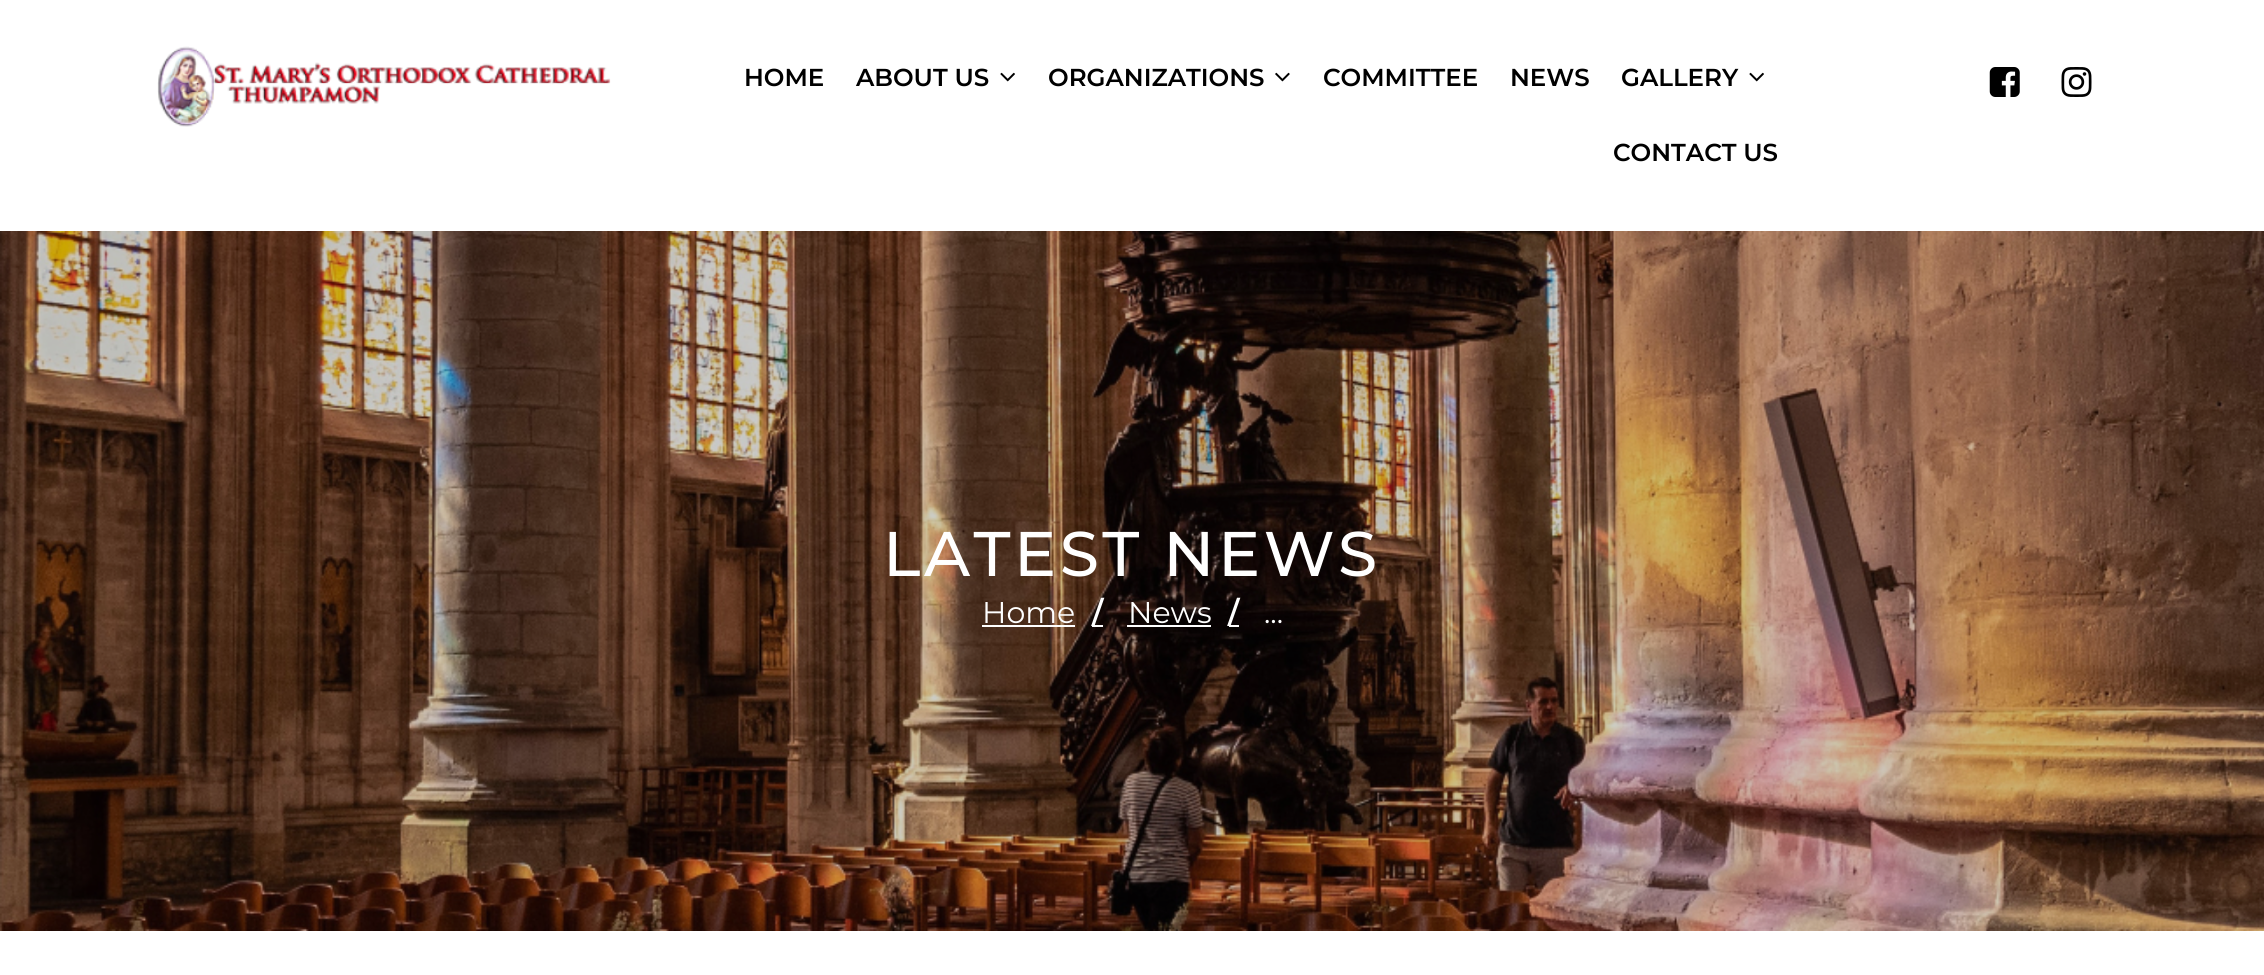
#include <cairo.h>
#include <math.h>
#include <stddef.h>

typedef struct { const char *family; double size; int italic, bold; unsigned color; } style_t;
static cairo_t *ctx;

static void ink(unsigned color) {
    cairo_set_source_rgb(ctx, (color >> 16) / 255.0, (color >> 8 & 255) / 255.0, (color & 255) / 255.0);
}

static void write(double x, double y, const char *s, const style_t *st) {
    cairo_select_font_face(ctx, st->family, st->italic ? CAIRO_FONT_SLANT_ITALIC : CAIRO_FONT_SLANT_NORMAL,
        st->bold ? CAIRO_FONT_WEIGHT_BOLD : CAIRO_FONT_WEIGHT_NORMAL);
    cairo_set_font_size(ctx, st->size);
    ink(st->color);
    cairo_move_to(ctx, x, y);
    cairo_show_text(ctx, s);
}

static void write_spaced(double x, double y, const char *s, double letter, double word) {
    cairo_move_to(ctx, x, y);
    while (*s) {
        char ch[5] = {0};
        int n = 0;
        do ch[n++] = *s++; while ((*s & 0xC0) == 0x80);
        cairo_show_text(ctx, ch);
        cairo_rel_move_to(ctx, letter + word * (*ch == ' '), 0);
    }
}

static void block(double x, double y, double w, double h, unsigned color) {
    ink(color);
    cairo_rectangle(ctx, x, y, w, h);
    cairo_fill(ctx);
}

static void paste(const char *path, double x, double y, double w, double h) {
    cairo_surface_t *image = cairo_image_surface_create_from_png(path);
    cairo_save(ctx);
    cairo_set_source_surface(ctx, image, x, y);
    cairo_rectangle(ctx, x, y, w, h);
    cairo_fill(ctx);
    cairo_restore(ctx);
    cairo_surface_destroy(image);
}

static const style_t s1 = {"Montserrat SemiBold", 24.5, 0, 0, 0x000000};
static const style_t s2 = {"Montserrat", 30, 0, 0, 0xffffff};
static const style_t s3 = {"Montserrat SemiBold", 30, 0, 0, 0xffffff};

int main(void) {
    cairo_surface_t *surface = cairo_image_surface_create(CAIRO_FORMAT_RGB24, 2264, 975);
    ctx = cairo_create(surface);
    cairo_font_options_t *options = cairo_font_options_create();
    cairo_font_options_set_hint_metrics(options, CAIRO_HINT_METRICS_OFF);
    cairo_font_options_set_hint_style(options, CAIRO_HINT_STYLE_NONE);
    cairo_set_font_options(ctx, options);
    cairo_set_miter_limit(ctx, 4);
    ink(0xffffff);
    cairo_paint(ctx);
    paste("pic1.png", 157, 46, 454, 81);
    write(744, 86, "HOME", &s1);
    write(856, 86, "ABOUT US", &s1);
    paste("pic2.png", 1000, 72, 15, 10);
    write(1048, 86, "ORGANIZATIONS", &s1);
    paste("pic3.png", 1275, 72, 15, 10);
    write(1323, 86, "COMMITTEE", &s1);
    write(1510, 86, "NEWS", &s1);
    write(1621, 86, "GALLERY", &s1);
    paste("pic2.png", 1749, 72, 15, 10);
    write(1613, 161, "CONTACT US", &s1);
    paste("pic4.png", 1989, 67, 31, 30);
    paste("pic5.png", 2061, 67, 31, 30);
    paste("pic6.png", 0, 231, 2264, 700);
    cairo_select_font_face(ctx, "Montserrat Medium", CAIRO_FONT_SLANT_NORMAL, CAIRO_FONT_WEIGHT_NORMAL);
    cairo_set_font_size(ctx, 63);
    ink(0xffffff);
    write_spaced(883, 576, "LATEST NEWS", 3.5, 0);
    write(982, 623, "Home", &s2);
    block(982, 625, 93, 2, 0xffffff);
    block(1092, 625, 11, 2, 0xffffff);
    write(1092, 623, "/", &s3);
    write(1128, 623, "News", &s2);
    block(1127, 625, 84, 2, 0xffffff);
    block(1229, 625, 10, 2, 0xffffff);
    write(1228, 623, "/", &s3);
    write(1264, 623, "...", &s2);
    cairo_surface_write_to_png(surface, "screenshot.png");
    cairo_font_options_destroy(options);
    cairo_destroy(ctx);
    cairo_surface_destroy(surface);
    return 0;
}
